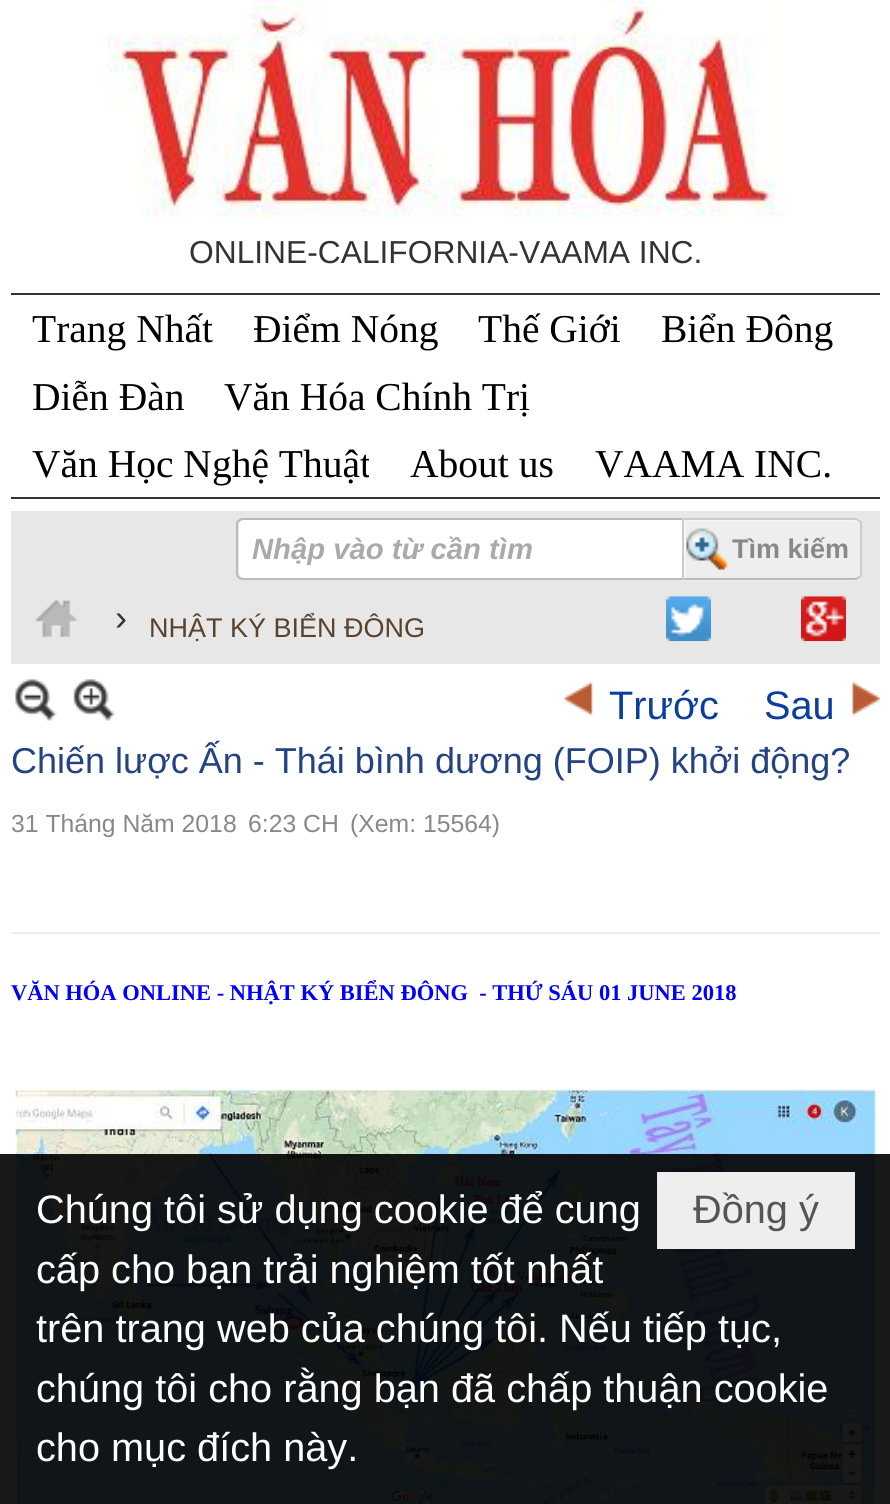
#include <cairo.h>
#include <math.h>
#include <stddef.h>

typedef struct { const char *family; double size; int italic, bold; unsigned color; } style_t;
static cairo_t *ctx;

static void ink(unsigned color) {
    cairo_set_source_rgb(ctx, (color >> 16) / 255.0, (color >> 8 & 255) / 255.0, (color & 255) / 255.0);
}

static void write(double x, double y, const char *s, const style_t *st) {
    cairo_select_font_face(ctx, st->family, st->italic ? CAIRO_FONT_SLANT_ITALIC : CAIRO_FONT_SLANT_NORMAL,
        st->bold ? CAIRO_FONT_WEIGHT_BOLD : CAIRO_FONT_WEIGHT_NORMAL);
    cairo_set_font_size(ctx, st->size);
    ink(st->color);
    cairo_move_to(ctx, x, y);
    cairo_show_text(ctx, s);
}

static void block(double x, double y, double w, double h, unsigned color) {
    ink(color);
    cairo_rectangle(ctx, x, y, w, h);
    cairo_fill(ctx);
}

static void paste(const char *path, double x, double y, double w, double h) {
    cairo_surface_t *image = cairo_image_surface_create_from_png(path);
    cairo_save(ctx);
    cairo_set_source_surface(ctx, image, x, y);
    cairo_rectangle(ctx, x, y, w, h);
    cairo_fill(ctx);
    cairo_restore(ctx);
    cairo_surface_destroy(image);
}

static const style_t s1 = {"Liberation Sans", 31.75, 0, 0, 0x333333};
static const style_t s2 = {"Liberation Serif", 39.5, 0, 0, 0x000000};
static const style_t s3 = {"Liberation Sans", 29.25, 1, 1, 0xaaaaaa};
static const style_t s4 = {"Liberation Sans", 27, 0, 1, 0x888888};
static const style_t s5 = {"Liberation Sans", 36, 0, 0, 0x333333};
static const style_t s6 = {"Liberation Sans", 27, 0, 0, 0x5a432e};
static const style_t s7 = {"Liberation Sans", 39.7, 0, 0, 0x0a3f9f};
static const style_t s8 = {"Liberation Sans", 36, 0, 0, 0x234383};
static const style_t s9 = {"Liberation Sans", 24.75, 0, 0, 0x888888};
static const style_t s10 = {"Liberation Serif", 22.5, 0, 1, 0x0000ff};
static const style_t s11 = {"Liberation Sans", 39.7, 0, 0, 0xffffff};
static const style_t s12 = {"Liberation Sans", 39.7, 0, 0, 0x555555};

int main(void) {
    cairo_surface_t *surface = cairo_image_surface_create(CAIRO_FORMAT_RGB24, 890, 1504);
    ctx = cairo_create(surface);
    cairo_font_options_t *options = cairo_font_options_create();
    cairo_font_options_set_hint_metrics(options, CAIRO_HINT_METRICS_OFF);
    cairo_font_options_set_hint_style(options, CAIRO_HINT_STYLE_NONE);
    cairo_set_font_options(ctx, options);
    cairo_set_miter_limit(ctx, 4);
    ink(0xffffff);
    cairo_paint(ctx);
    paste("pic1.png", 108, 0, 675, 218);
    write(189, 263, "ONLINE-CALIFORNIA-VAAMA INC.", &s1);
    block(11, 293, 869, 2, 0x333333);
    block(11, 497, 869, 2, 0x333333);
    write(32, 342, "Trang Nhất", &s2);
    write(253, 342, "Điểm Nóng", &s2);
    write(478, 342, "Thế Giới", &s2);
    write(661, 342, "Biển Đông", &s2);
    write(32, 410, "Diễn Đàn", &s2);
    write(224, 410, "Văn Hóa Chính Trị", &s2);
    cairo_save(ctx);
    cairo_rectangle(ctx, 32, 430, 337, 63);
    cairo_clip(ctx);
    write(32, 477, "Văn Học Nghệ Thuật", &s2);
    cairo_restore(ctx);
    write(410, 477, "About us", &s2);
    write(595, 477, "VAAMA INC.", &s2);
    block(11, 511, 869, 153, 0xe7e7e8);
    ink(0xffffff);
    cairo_new_path(ctx);
    cairo_move_to(ctx, 244, 520);
    cairo_line_to(ctx, 682, 520);
    cairo_line_to(ctx, 682, 578);
    cairo_line_to(ctx, 244, 578);
    cairo_curve_to(ctx, 241, 578, 239, 576, 239, 573);
    cairo_line_to(ctx, 239, 525);
    cairo_curve_to(ctx, 239, 522, 241, 520, 244, 520);
    cairo_close_path(ctx);
    cairo_fill(ctx);
    ink(0xbbbbbb);
    cairo_set_fill_rule(ctx, CAIRO_FILL_RULE_EVEN_ODD);
    cairo_new_path(ctx);
    cairo_move_to(ctx, 243, 518);
    cairo_line_to(ctx, 682, 518);
    cairo_line_to(ctx, 682, 580);
    cairo_line_to(ctx, 243, 580);
    cairo_curve_to(ctx, 239, 580, 236, 577, 236, 574);
    cairo_line_to(ctx, 236, 524);
    cairo_curve_to(ctx, 236, 521, 239, 518, 243, 518);
    cairo_close_path(ctx);
    cairo_move_to(ctx, 243, 520);
    cairo_line_to(ctx, 682, 520);
    cairo_line_to(ctx, 682, 578);
    cairo_line_to(ctx, 243, 578);
    cairo_curve_to(ctx, 241, 578, 238, 576, 238, 574);
    cairo_line_to(ctx, 238, 524);
    cairo_curve_to(ctx, 238, 522, 241, 520, 243, 520);
    cairo_close_path(ctx);
    cairo_fill(ctx);
    write(252, 559, "Nhập vào từ cần tìm", &s3);
    ink(0xeeeeee);
    cairo_new_path(ctx);
    cairo_move_to(ctx, 682, 518);
    cairo_line_to(ctx, 855, 518);
    cairo_curve_to(ctx, 859, 518, 862, 521, 862, 525);
    cairo_line_to(ctx, 862, 574);
    cairo_curve_to(ctx, 862, 578, 859, 581, 855, 581);
    cairo_line_to(ctx, 682, 581);
    cairo_close_path(ctx);
    cairo_fill(ctx);
    paste("pic2.png", 686, 528, 42, 42);
    ink(0xf5f5f5);
    cairo_set_fill_rule(ctx, CAIRO_FILL_RULE_WINDING);
    cairo_new_path(ctx);
    cairo_move_to(ctx, 686, 522);
    cairo_line_to(ctx, 857, 522);
    cairo_line_to(ctx, 859, 522);
    cairo_curve_to(ctx, 858, 521, 857, 520, 855, 520);
    cairo_line_to(ctx, 684, 520);
    cairo_line_to(ctx, 684, 578);
    cairo_line_to(ctx, 686, 578);
    cairo_close_path(ctx);
    cairo_fill(ctx);
    ink(0xcccccc);
    cairo_new_path(ctx);
    cairo_move_to(ctx, 860, 520);
    cairo_line_to(ctx, 856, 518);
    cairo_line_to(ctx, 682, 518);
    cairo_line_to(ctx, 684, 520);
    cairo_line_to(ctx, 855, 520);
    cairo_line_to(ctx, 858, 521);
    cairo_close_path(ctx);
    cairo_fill(ctx);
    cairo_new_path(ctx);
    cairo_move_to(ctx, 860, 520);
    cairo_line_to(ctx, 862, 522);
    cairo_line_to(ctx, 862, 576);
    cairo_line_to(ctx, 860, 578);
    cairo_line_to(ctx, 858, 577);
    cairo_curve_to(ctx, 859, 576, 860, 575, 860, 574);
    cairo_line_to(ctx, 860, 524);
    cairo_curve_to(ctx, 860, 523, 859, 522, 858, 521);
    cairo_close_path(ctx);
    cairo_fill(ctx);
    ink(0xbbbbbb);
    cairo_new_path(ctx);
    cairo_move_to(ctx, 860, 578);
    cairo_line_to(ctx, 856, 580);
    cairo_line_to(ctx, 682, 580);
    cairo_line_to(ctx, 684, 578);
    cairo_line_to(ctx, 855, 578);
    cairo_line_to(ctx, 858, 577);
    cairo_close_path(ctx);
    cairo_fill(ctx);
    ink(0xcccccc);
    cairo_new_path(ctx);
    cairo_move_to(ctx, 682, 518);
    cairo_line_to(ctx, 682, 580);
    cairo_line_to(ctx, 684, 578);
    cairo_line_to(ctx, 684, 520);
    cairo_close_path(ctx);
    cairo_fill(ctx);
    write(732, 558, "Tìm kiếm", &s4);
    paste("pic3.png", 35, 600, 43, 38);
    write(115, 630, "›", &s5);
    write(149, 637, "NHẬT KÝ BIỂN ĐÔNG", &s6);
    paste("pic4.png", 666, 596, 45, 46);
    paste("pic5.png", 801, 596, 45, 46);
    block(11, 932, 869, 2, 0xeeeeee);
    paste("pic6.png", 15, 679, 42, 42);
    paste("pic7.png", 73, 679, 43, 42);
    paste("pic8.png", 564, 681, 29, 35);
    write(609, 719, "Trước", &s7);
    paste("pic9.png", 852, 681, 28, 35);
    write(764, 719, "Sau", &s7);
    write(11, 773, "Chiến lược Ấn - Thái bình dương (FOIP) khởi động?", &s8);
    write(11, 832, "31 Tháng Năm 2018", &s9);
    write(248, 832, "6:23 CH", &s9);
    write(350, 832, "(Xem: 15564)", &s9);
    write(11, 1000, "VĂN HÓA ONLINE - NHẬT KÝ BIỂN ĐÔNG  - THỨ SÁU 01 JUNE 2018", &s10);
    paste("pic10.png", 15, 1089, 861, 415);
    cairo_set_source_rgba(ctx, 0, 0, 0, 0.9);
    cairo_rectangle(ctx, 0, 1154, 890, 350);
    cairo_fill(ctx);
    write(36, 1223, "Chúng tôi sử dụng cookie để cung", &s11);
    write(36, 1283, "cấp cho bạn trải nghiệm tốt nhất", &s11);
    write(36, 1342, "trên trang web của chúng tôi. Nếu tiếp tục,", &s11);
    write(36, 1402, "chúng tôi cho rằng bạn đã chấp thuận cookie", &s11);
    write(36, 1461, "cho mục đích này.", &s11);
    block(657, 1172, 198, 77, 0xeeeeee);
    write(693, 1223, "Đồng ý", &s12);
    cairo_surface_write_to_png(surface, "screenshot.png");
    cairo_font_options_destroy(options);
    cairo_destroy(ctx);
    cairo_surface_destroy(surface);
    return 0;
}
